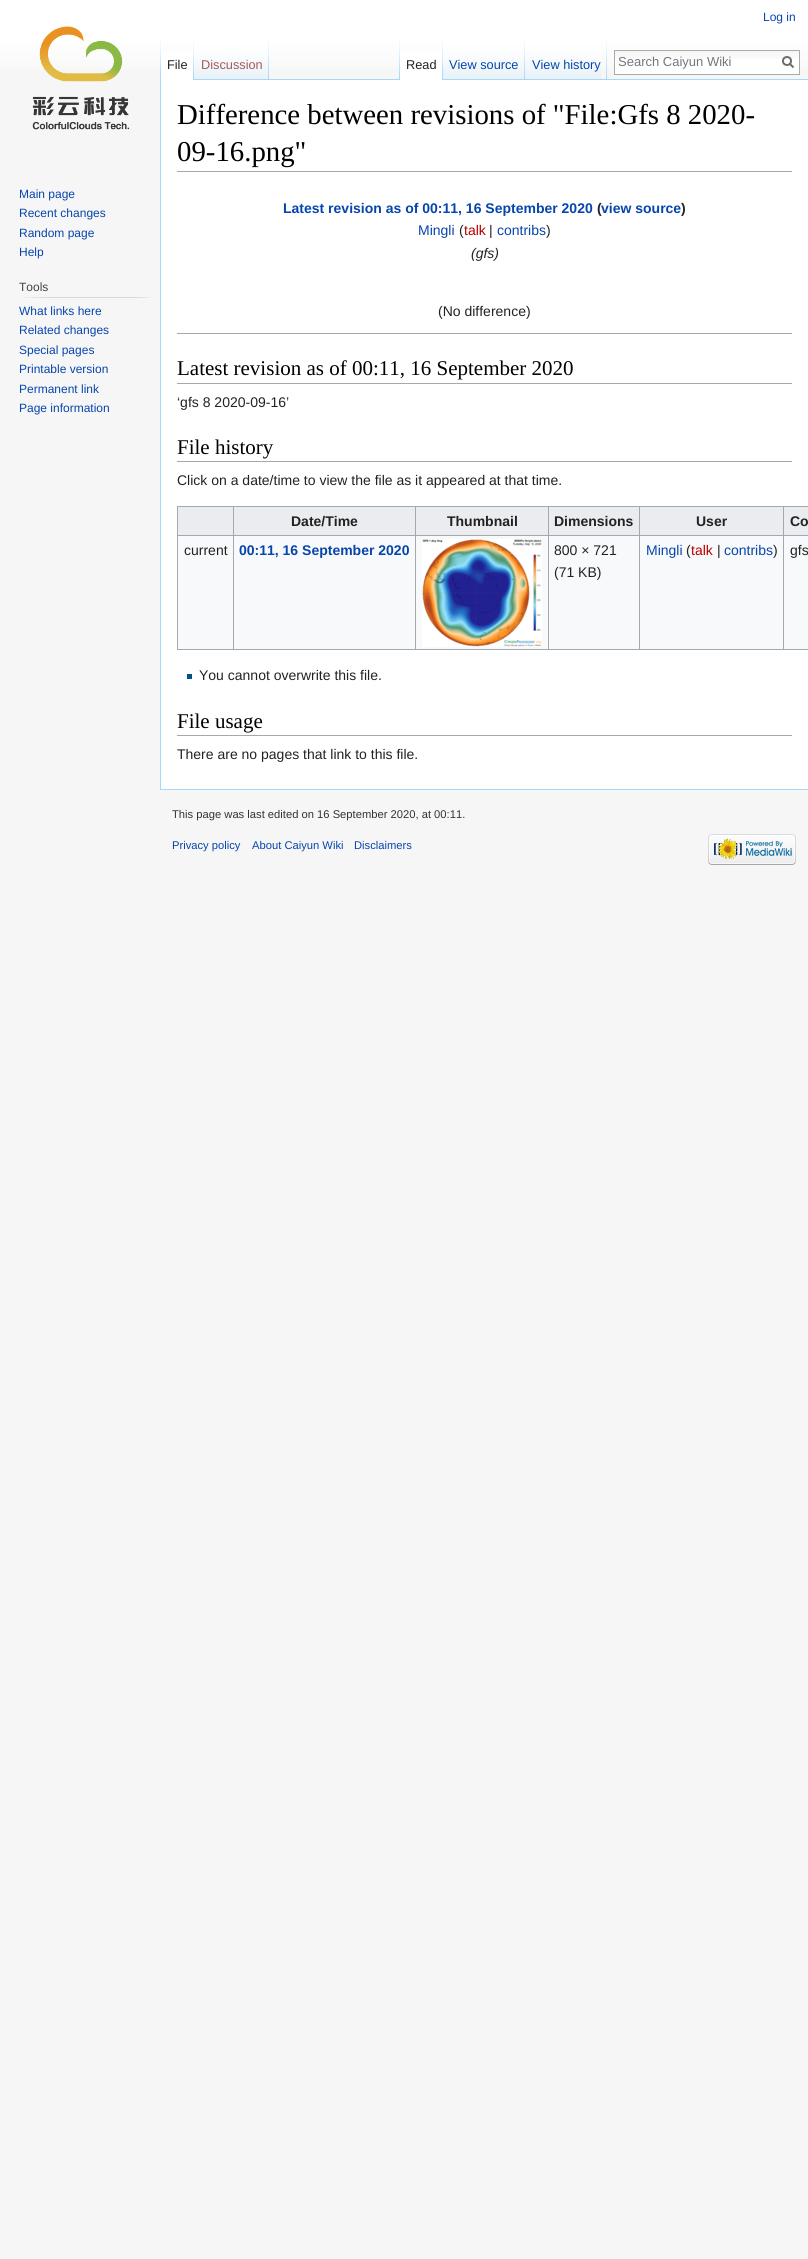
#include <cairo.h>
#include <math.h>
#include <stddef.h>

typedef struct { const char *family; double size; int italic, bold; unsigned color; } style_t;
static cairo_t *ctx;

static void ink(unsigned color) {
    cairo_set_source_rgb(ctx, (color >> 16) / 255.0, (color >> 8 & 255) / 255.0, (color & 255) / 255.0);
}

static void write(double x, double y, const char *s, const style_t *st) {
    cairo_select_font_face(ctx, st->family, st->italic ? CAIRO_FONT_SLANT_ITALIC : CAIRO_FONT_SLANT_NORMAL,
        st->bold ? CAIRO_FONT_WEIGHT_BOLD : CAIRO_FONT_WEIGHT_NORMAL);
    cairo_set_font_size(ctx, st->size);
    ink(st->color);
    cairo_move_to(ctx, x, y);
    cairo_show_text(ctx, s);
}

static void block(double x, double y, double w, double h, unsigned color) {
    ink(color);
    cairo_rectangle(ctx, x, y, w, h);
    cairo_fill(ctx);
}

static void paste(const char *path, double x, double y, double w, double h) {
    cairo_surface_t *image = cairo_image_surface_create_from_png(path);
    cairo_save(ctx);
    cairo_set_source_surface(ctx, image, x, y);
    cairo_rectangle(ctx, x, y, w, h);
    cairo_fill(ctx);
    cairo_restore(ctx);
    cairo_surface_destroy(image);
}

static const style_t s1 = {"Liberation Sans", 12, 0, 0, 0x0645ad};
static const style_t s2 = {"Liberation Sans", 12.75, 0, 0, 0x222222};
static const style_t s3 = {"Liberation Sans", 12.75, 0, 0, 0xa55858};
static const style_t s4 = {"Liberation Sans", 12.75, 0, 0, 0x0645ad};
static const style_t s5 = {"Liberation Sans", 13, 0, 0, 0x72777d};
static const style_t s6 = {"Liberation Sans", 12, 0, 0, 0x444444};
static const style_t s7 = {"Liberation Serif", 28.8, 0, 0, 0x000000};
static const style_t s8 = {"Liberation Sans", 14, 0, 1, 0x0645ad};
static const style_t s9 = {"Liberation Sans", 14, 0, 1, 0x222222};
static const style_t s10 = {"Liberation Sans", 14, 0, 0, 0x0645ad};
static const style_t s11 = {"Liberation Sans", 14, 0, 0, 0x222222};
static const style_t s12 = {"Liberation Sans", 14, 0, 0, 0xba0000};
static const style_t s13 = {"Liberation Sans", 14, 1, 0, 0x222222};
static const style_t s14 = {"Liberation Serif", 21, 0, 0, 0x000000};
static const style_t s15 = {"Liberation Sans", 11.2, 0, 0, 0x333333};
static const style_t s16 = {"Liberation Sans", 11.2, 0, 0, 0x0645ad};

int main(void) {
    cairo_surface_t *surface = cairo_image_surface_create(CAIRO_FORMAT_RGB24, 808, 2259);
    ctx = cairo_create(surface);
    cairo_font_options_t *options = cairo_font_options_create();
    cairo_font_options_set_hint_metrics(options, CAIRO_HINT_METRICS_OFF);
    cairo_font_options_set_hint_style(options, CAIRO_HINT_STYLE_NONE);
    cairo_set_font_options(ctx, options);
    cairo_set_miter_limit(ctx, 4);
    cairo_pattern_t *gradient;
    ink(0xf6f6f6);
    cairo_paint(ctx);
    gradient = cairo_pattern_create_linear(404, 0, 404, 80);
    cairo_pattern_add_color_stop_rgba(gradient, 0.5, 1, 1, 1, 1);
    cairo_pattern_add_color_stop_rgba(gradient, 1, 0.965, 0.965, 0.965, 1);
    cairo_set_source(ctx, gradient);
    cairo_pattern_destroy(gradient);
    cairo_rectangle(ctx, 0, 0, 808, 69);
    cairo_fill(ctx);
    write(763, 21, "Log in", &s1);
    paste("pic1.png", 160, 40, 1, 39);
    block(161, 51, 32, 29, 0xffffff);
    paste("pic2.png", 193, 40, 1, 40);
    write(167, 69, "File", &s2);
    paste("pic3.png", 194, 40, 75, 40);
    paste("pic1.png", 268, 40, 1, 39);
    write(201, 69, "Discussion", &s3);
    paste("pic1.png", 399, 40, 1, 39);
    block(269, 79, 539, 1, 0xa7d7f9);
    block(400, 51, 42, 29, 0xffffff);
    paste("pic2.png", 442, 40, 1, 40);
    write(406, 69, "Read", &s2);
    paste("pic4.png", 443, 40, 82, 40);
    paste("pic1.png", 524, 40, 1, 39);
    write(449, 69, "View source", &s4);
    paste("pic5.png", 525, 40, 76, 40);
    write(532, 69, "View history", &s4);
    paste("pic1.png", 606, 40, 1, 39);
    block(615, 59, 184, 15, 0xffffff);
    paste("pic6.png", 615, 51, 184, 8);
    cairo_rectangle(ctx, 614.5, 50.5, 185, 24);
    ink(0xaaaaaa);
    cairo_set_line_width(ctx, 1);
    cairo_stroke(ctx);
    write(618, 66, "Search Caiyun Wiki", &s5);
    cairo_new_path(ctx);
    cairo_move_to(ctx, 793.5, 67.5);
    cairo_line_to(ctx, 789.5, 63.5);
    ink(0x6c6c6c);
    cairo_set_line_width(ctx, 2);
    cairo_stroke(ctx);
    cairo_arc(ctx, 787, 61, 4, 0, 2 * M_PI);
    cairo_stroke(ctx);
    paste("pic7.png", 32, 26, 98, 104);
    write(19, 198, "Main page", &s1);
    write(19, 217, "Recent changes", &s1);
    write(19, 237, "Random page", &s1);
    write(19, 256, "Help", &s1);
    write(19, 291, "Tools", &s6);
    paste("pic8.png", 22, 297, 128, 1);
    write(19, 315, "What links here", &s1);
    write(19, 334, "Related changes", &s1);
    write(19, 354, "Special pages", &s1);
    write(19, 373, "Printable version", &s1);
    write(19, 393, "Permanent link", &s1);
    write(19, 412, "Page information", &s1);
    block(161, 80, 647, 709, 0xffffff);
    block(160, 789, 648, 1, 0xa7d7f9);
    block(160, 79, 1, 711, 0xa7d7f9);
    block(177, 171, 615, 1, 0xa2a9b1);
    write(177, 124, "Difference between revisions of \"File:Gfs 8 2020-", &s7);
    write(177, 161, "09-16.png\"", &s7);
    write(283, 213, "Latest revision as of 00:11, 16 September 2020", &s8);
    write(597, 213, "(", &s9);
    write(601, 213, "view source", &s8);
    write(681, 213, ")", &s9);
    write(418, 235, "Mingli", &s10);
    write(459, 235, "(", &s11);
    write(464, 235, "talk", &s12);
    write(489, 235, "|", &s11);
    write(497, 235, "contribs", &s10);
    write(546, 235, ")", &s11);
    write(471, 258, "(gfs)", &s13);
    write(438, 316, "(No difference)", &s11);
    block(177, 333, 615, 1, 0xa2a9b1);
    block(177, 383, 615, 1, 0xa2a9b1);
    write(177, 375, "Latest revision as of 00:11, 16 September 2020", &s14);
    write(177, 407, "‘gfs 8 2020-09-16’", &s11);
    block(177, 461, 615, 1, 0xa2a9b1);
    write(177, 454, "File history", &s14);
    write(177, 485, "Click on a date/time to view the file as it appeared at that time.", &s11);
    block(178, 536, 630, 113, 0xf8f9fa);
    block(177, 506, 631, 1, 0xa2a9b1);
    block(177, 649, 631, 1, 0xa2a9b1);
    block(177, 506, 1, 144, 0xa2a9b1);
    block(178, 507, 55, 28, 0xeaecf0);
    block(234, 507, 181, 28, 0xeaecf0);
    block(783, 535, 25, 1, 0xa2a9b1);
    block(783, 535, 1, 115, 0xa2a9b1);
    block(639, 535, 145, 1, 0xa2a9b1);
    block(639, 535, 1, 115, 0xa2a9b1);
    block(548, 535, 92, 1, 0xa2a9b1);
    block(548, 535, 1, 115, 0xa2a9b1);
    block(415, 535, 134, 1, 0xa2a9b1);
    block(415, 535, 1, 115, 0xa2a9b1);
    block(233, 535, 183, 1, 0xa2a9b1);
    block(233, 535, 1, 115, 0xa2a9b1);
    block(177, 535, 57, 1, 0xa2a9b1);
    block(233, 506, 1, 30, 0xa2a9b1);
    write(291, 526, "Date/Time", &s9);
    block(416, 507, 132, 28, 0xeaecf0);
    block(415, 506, 1, 30, 0xa2a9b1);
    write(447, 526, "Thumbnail", &s9);
    block(549, 507, 90, 28, 0xeaecf0);
    block(548, 506, 1, 30, 0xa2a9b1);
    write(554, 526, "Dimensions", &s9);
    block(640, 507, 143, 28, 0xeaecf0);
    block(639, 506, 1, 30, 0xa2a9b1);
    write(696, 526, "User", &s9);
    block(784, 507, 24, 28, 0xeaecf0);
    block(783, 506, 1, 30, 0xa2a9b1);
    write(790, 526, "Co", &s9);
    write(184, 555, "current", &s11);
    write(239, 555, "00:11, 16 September 2020", &s8);
    paste("pic9.png", 422, 539, 120, 108);
    write(554, 555, "800 × 721", &s11);
    write(554, 577, "(71 KB)", &s11);
    write(646, 555, "Mingli", &s10);
    write(686, 555, "(", &s11);
    write(691, 555, "talk", &s12);
    write(717, 555, "|", &s11);
    write(724, 555, "contribs", &s10);
    write(773, 555, ")", &s11);
    write(790, 555, "gfs", &s11);
    block(187, 674, 5, 5, 0x00528c);
    write(199, 680, "You cannot overwrite this file.", &s11);
    block(177, 735, 615, 1, 0xa2a9b1);
    write(177, 728, "File usage", &s14);
    write(177, 759, "There are no pages that link to this file.", &s11);
    write(172, 818, "This page was last edited on 16 September 2020, at 00:11.", &s15);
    write(172, 849, "Privacy policy", &s16);
    write(252, 849, "About Caiyun Wiki", &s16);
    write(354, 849, "Disclaimers", &s16);
    paste("pic10.png", 708, 834, 88, 31);
    cairo_surface_write_to_png(surface, "screenshot.png");
    cairo_font_options_destroy(options);
    cairo_destroy(ctx);
    cairo_surface_destroy(surface);
    return 0;
}
